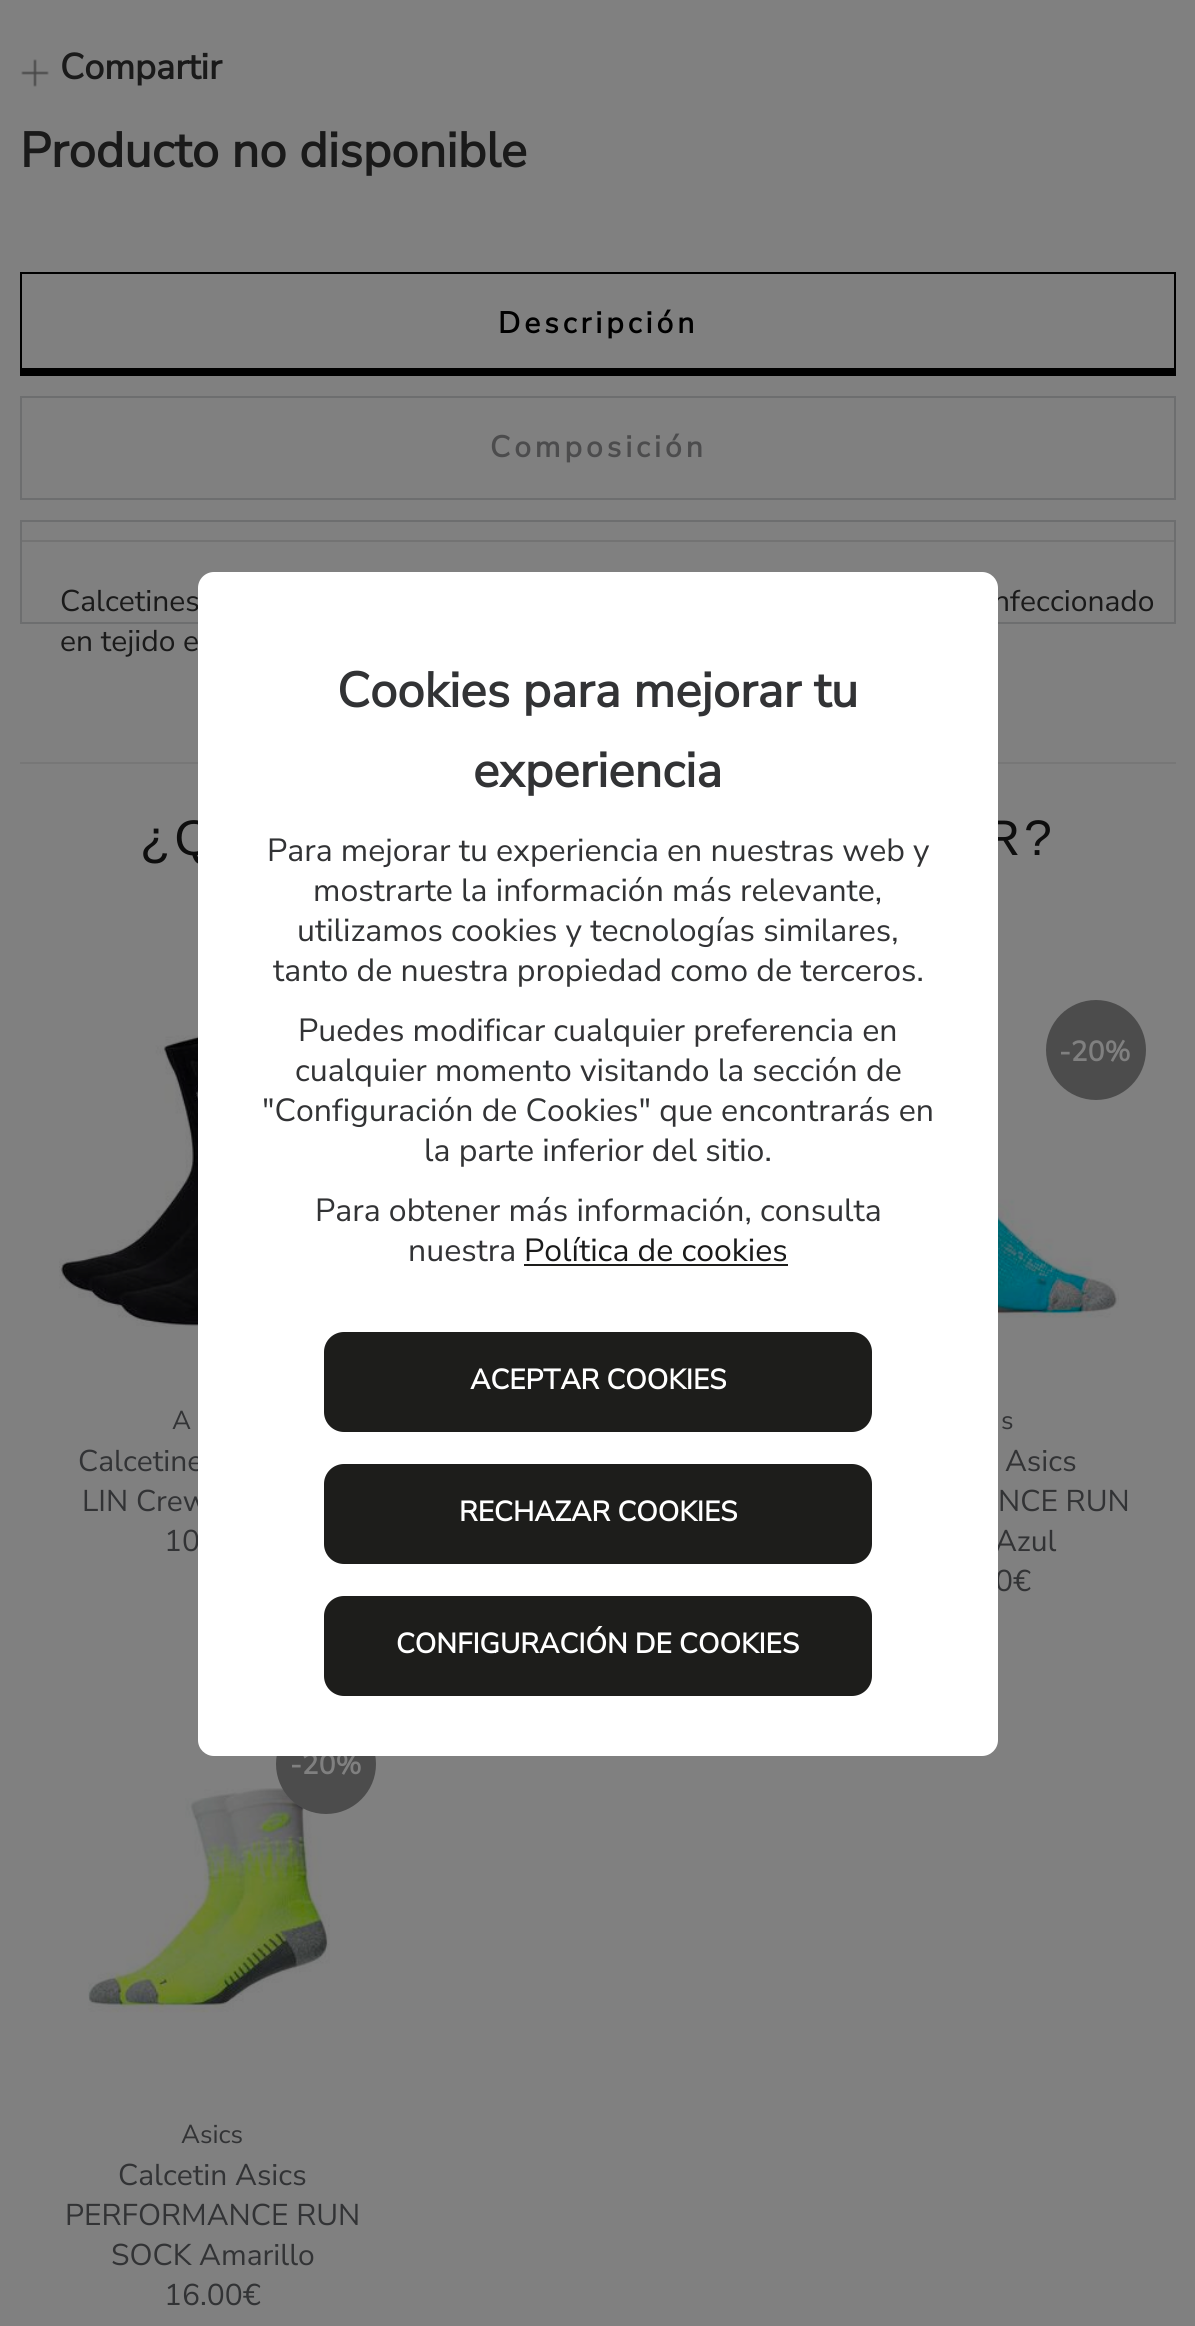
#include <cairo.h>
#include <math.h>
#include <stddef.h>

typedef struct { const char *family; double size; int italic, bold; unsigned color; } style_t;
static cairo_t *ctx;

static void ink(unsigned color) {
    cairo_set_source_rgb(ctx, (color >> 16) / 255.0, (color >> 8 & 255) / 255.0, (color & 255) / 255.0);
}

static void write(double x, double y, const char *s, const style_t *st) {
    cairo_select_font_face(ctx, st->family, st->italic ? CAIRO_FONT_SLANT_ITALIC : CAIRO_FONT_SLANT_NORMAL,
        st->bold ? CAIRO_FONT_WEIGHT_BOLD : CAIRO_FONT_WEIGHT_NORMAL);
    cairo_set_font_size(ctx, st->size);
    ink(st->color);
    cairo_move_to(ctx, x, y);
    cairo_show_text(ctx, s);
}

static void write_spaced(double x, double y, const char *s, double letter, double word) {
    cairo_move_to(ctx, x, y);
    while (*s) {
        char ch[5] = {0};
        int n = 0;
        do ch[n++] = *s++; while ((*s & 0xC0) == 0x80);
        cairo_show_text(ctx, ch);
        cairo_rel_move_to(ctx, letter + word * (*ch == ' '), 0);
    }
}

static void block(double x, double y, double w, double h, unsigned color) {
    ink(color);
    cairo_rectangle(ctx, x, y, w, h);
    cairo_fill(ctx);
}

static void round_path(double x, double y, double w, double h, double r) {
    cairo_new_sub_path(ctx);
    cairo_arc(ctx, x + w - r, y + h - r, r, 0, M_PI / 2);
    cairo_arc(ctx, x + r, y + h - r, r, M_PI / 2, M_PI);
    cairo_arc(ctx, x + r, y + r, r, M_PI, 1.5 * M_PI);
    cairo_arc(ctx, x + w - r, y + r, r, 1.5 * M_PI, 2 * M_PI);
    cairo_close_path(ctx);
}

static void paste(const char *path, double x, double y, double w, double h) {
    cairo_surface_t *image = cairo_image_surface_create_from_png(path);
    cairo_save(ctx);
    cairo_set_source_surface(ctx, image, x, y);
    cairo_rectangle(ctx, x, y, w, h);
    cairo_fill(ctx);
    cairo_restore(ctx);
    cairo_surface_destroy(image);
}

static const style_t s1 = {"Nunito Sans", 36, 0, 1, 0x1a1a1a};
static const style_t s2 = {"Nunito Sans", 49, 0, 1, 0x1a1a1a};
static const style_t s3 = {"Nunito Sans ExtraLight", 30, 0, 0, 0x1a1a1a};
static const style_t s4 = {"Nunito Sans ExtraLight", 26, 0, 0, 0x323335};
static const style_t s5 = {"Nunito Sans ExtraLight", 30, 0, 0, 0x323335};
static const style_t s6 = {"Nunito Sans", 28, 0, 1, 0x808080};
static const style_t s7 = {"Nunito Sans", 49, 0, 1, 0x323335};
static const style_t s8 = {"Nunito Sans ExtraLight", 32, 0, 0, 0x323335};
static const style_t s9 = {"Nunito Sans ExtraLight", 32, 0, 0, 0x1a1a1a};
static const style_t s10 = {"Nunito Sans", 28, 0, 1, 0xffffff};

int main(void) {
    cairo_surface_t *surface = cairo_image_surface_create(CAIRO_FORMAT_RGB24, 1195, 2326);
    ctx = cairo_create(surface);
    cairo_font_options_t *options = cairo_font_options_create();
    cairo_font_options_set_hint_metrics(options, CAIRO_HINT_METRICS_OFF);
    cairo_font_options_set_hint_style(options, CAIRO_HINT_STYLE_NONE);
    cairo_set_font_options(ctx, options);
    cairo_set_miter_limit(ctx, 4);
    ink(0x808080);
    cairo_paint(ctx);
    paste("pic1.png", 21, 59, 28, 28);
    write(60, 79, "Compartir", &s1);
    write(20, 167, "Producto no disponible", &s2);
    block(20, 540, 1156, 2, 0x737373);
    block(22, 368, 1152, 6, 0x000000);
    cairo_rectangle(ctx, 21, 273, 1154, 102);
    cairo_stroke(ctx);
    cairo_set_font_size(ctx, 30);
    write_spaced(498, 333, "Descripción", 4, 0);
    cairo_rectangle(ctx, 21, 397, 1154, 102);
    ink(0x6d6e6f);
    cairo_stroke(ctx);
    ink(0x4c4c4d);
    write_spaced(490, 457, "Composición", 4, 0);
    cairo_rectangle(ctx, 21, 521, 1154, 102);
    ink(0x6d6e6f);
    cairo_stroke(ctx);
    write(60, 611, "Calcetines", &s3);
    write(993, 611, "nfeccionado", &s3);
    write(60, 651, "en tejido e", &s3);
    block(20, 762, 1156, 2, 0x777777);
    cairo_select_font_face(ctx, "Liberation Sans", CAIRO_FONT_SLANT_NORMAL, CAIRO_FONT_WEIGHT_NORMAL);
    cairo_set_font_size(ctx, 50);
    ink(0x0e0e0e);
    write_spaced(140, 855, "¿Q", 4, 0);
    write_spaced(984, 855, "R?", 4, 0);
    paste("pic2.png", 59, 1023, 139, 304);
    write(172, 1429, "A", &s4);
    write(78, 1471, "Calcetine", &s5);
    write(82, 1511, "LIN Crew", &s5);
    write(164, 1551, "10", &s5);
    paste("pic3.png", 998, 1045, 121, 273);
    ink(0x4c4c4c);
    cairo_arc(ctx, 1096, 1050, 50, 0, 2 * M_PI);
    cairo_fill(ctx);
    write(1059, 1061, "-20%", &s6);
    write(1001, 1429, "s", &s4);
    write(1005, 1471, "Asics", &s5);
    write(998, 1511, "NCE RUN", &s5);
    write(995, 1551, "Azul", &s5);
    write(995, 1591, "0€", &s5);
    paste("pic4.png", 88, 1788, 242, 225);
    ink(0x4c4c4c);
    cairo_arc(ctx, 326, 1764, 50, 0, 2 * M_PI);
    cairo_fill(ctx);
    write(290, 1774, "-20%", &s6);
    write(181, 2143, "Asics", &s4);
    write(118, 2185, "Calcetin Asics", &s5);
    write(65, 2225, "PERFORMANCE RUN", &s5);
    write(111, 2265, "SOCK Amarillo", &s5);
    write(164, 2305, "16.00€", &s5);
    ink(0xffffff);
    round_path(198, 572, 800, 1184, 16);
    cairo_fill(ctx);
    write(337, 707, "Cookies para mejorar tu", &s7);
    write(473, 787, "experiencia", &s7);
    write(267, 861, "Para mejorar tu experiencia en nuestras web y", &s8);
    write(313, 901, "mostrarte la información más relevante,", &s8);
    write(297, 941, "utilizamos cookies y tecnologías similares,", &s8);
    write(273, 981, "tanto de nuestra propiedad como de terceros.", &s8);
    write(298, 1041, "Puedes modificar cualquier preferencia en", &s8);
    write(295, 1081, "cualquier momento visitando la sección de", &s8);
    write(262, 1121, "\"Configuración de Cookies\" que encontrarás en", &s8);
    write(424, 1161, "la parte inferior del sitio.", &s8);
    write(315, 1221, "Para obtener más información, consulta", &s8);
    write(408, 1261, "nuestra", &s8);
    write(524, 1261, "Política de cookies", &s9);
    block(524, 1264, 264, 2, 0x1d1d1b);
    round_path(324, 1332, 548, 100, 20);
    cairo_fill(ctx);
    write(470, 1389, "ACEPTAR COOKIES", &s10);
    ink(0x1d1d1b);
    round_path(324, 1464, 548, 100, 20);
    cairo_fill(ctx);
    write(459, 1521, "RECHAZAR COOKIES", &s10);
    ink(0x1d1d1b);
    round_path(324, 1596, 548, 100, 20);
    cairo_fill(ctx);
    write(396, 1653, "CONFIGURACIÓN DE COOKIES", &s10);
    cairo_surface_write_to_png(surface, "screenshot.png");
    cairo_font_options_destroy(options);
    cairo_destroy(ctx);
    cairo_surface_destroy(surface);
    return 0;
}
